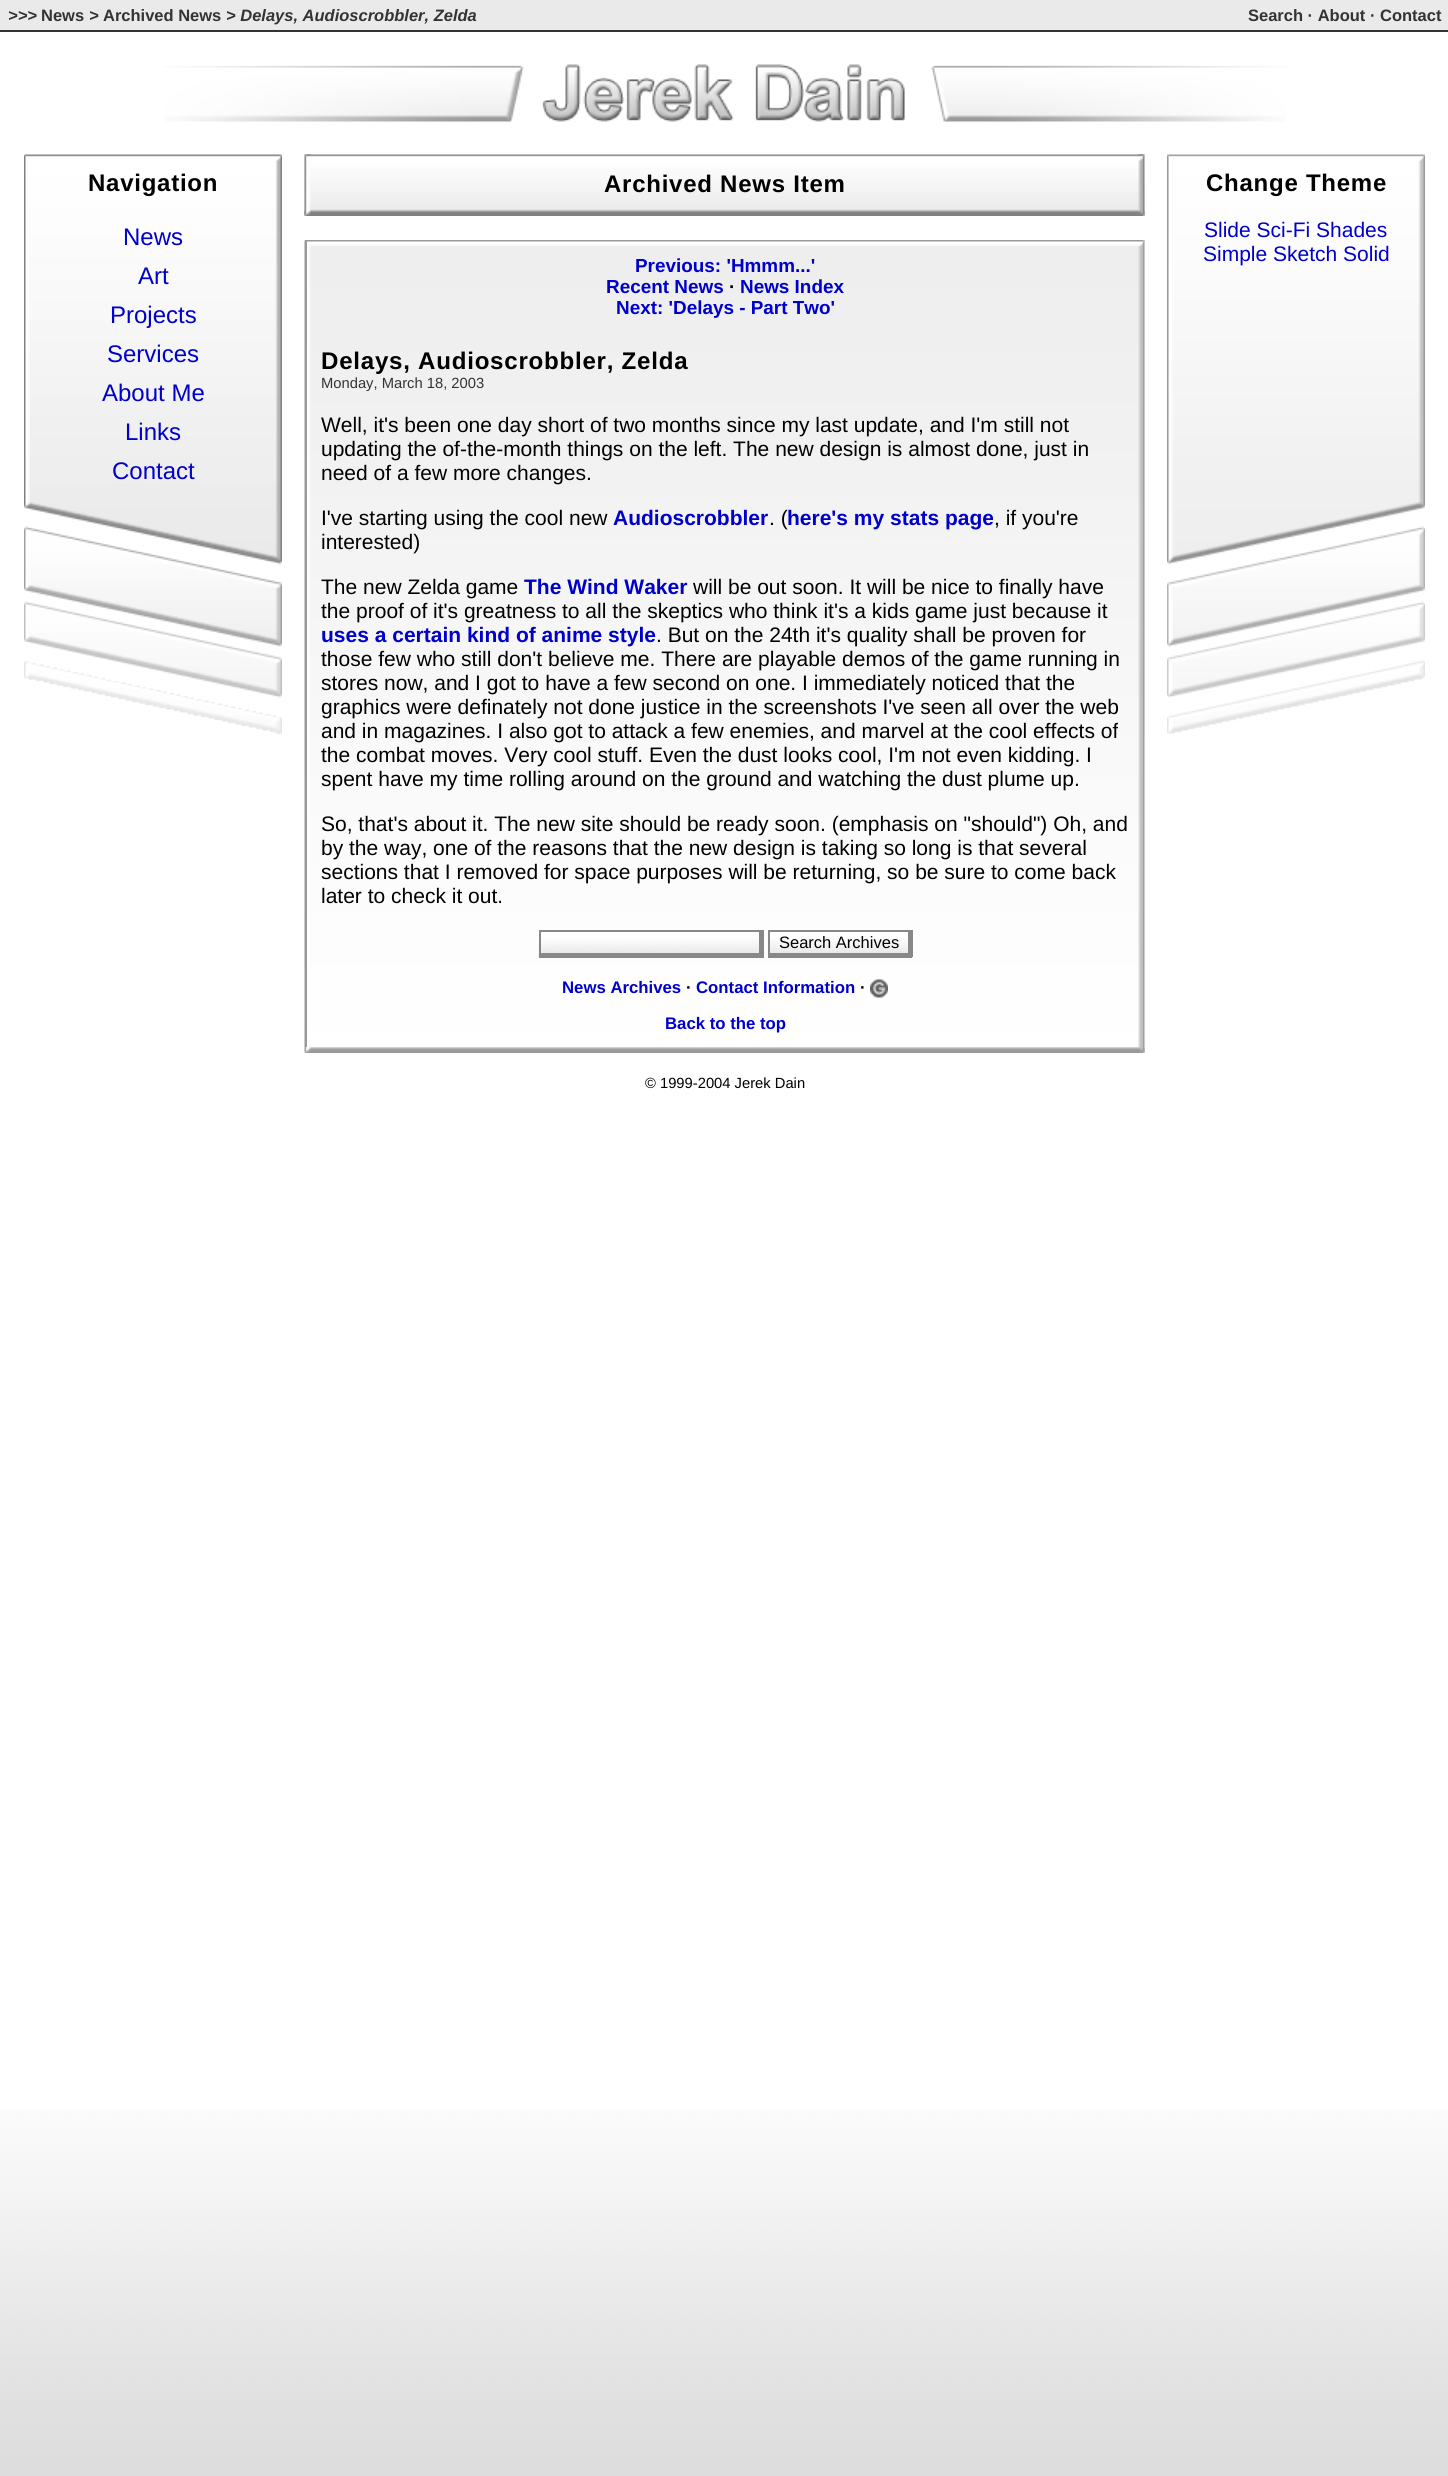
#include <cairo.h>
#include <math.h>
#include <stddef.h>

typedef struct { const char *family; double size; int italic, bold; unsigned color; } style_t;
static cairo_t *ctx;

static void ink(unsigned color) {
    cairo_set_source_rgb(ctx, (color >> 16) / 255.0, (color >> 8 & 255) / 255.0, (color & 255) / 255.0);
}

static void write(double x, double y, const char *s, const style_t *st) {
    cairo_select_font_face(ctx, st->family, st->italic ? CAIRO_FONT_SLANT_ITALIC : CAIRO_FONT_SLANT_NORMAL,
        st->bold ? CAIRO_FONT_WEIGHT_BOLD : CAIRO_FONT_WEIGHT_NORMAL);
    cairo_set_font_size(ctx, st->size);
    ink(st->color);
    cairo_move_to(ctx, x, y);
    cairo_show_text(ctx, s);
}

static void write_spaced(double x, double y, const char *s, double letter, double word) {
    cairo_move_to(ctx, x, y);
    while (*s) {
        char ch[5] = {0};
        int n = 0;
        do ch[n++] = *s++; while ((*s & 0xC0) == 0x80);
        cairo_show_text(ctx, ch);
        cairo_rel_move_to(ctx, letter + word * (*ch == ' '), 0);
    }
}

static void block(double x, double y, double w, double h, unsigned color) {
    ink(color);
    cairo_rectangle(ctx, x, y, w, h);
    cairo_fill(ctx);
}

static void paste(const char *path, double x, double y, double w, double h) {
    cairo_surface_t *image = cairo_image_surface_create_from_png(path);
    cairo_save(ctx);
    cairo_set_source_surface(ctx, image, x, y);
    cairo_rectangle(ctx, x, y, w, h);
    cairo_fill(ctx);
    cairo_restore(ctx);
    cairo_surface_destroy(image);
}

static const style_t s1 = {"Liberation Sans", 16.5, 1, 1, 0x333333};
static const style_t s2 = {"Liberation Sans", 16.5, 0, 1, 0x333333};
static const style_t s3 = {"Liberation Sans", 24, 0, 0, 0x0000cc};
static const style_t s4 = {"Liberation Sans", 21, 0, 0, 0x0000cc};
static const style_t s5 = {"Liberation Sans", 18.9, 0, 1, 0x0000cc};
static const style_t s6 = {"Liberation Sans", 18.9, 0, 1, 0x000000};
static const style_t s7 = {"Liberation Sans", 14.75, 0, 0, 0x333333};
static const style_t s8 = {"Liberation Sans", 21, 0, 0, 0x000000};
static const style_t s9 = {"Liberation Sans", 21, 0, 1, 0x0000cc};
static const style_t s10 = {"Liberation Sans", 16.5, 0, 0, 0x000000};
static const style_t s11 = {"Liberation Sans", 16.75, 0, 1, 0x0000cc};
static const style_t s12 = {"Liberation Sans", 16.75, 0, 1, 0x000000};
static const style_t s13 = {"Liberation Sans", 14.75, 0, 0, 0x000000};

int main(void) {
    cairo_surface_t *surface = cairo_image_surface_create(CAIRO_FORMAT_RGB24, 1448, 2476);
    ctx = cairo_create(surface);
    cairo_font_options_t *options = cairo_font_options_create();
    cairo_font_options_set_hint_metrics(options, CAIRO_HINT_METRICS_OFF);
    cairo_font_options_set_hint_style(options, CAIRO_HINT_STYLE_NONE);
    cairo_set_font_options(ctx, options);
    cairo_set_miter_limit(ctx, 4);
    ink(0xffffff);
    cairo_paint(ctx);
    paste("pic1.png", 0, 2109, 1448, 367);
    block(0, 0, 1448, 30, 0xeaeaea);
    block(0, 30, 1448, 2, 0x333333);
    write(8, 21, ">>>", &s1);
    write(41, 21, "News", &s2);
    write(89, 21, ">", &s1);
    write(103, 21, "Archived News", &s2);
    write(226, 21, "> Delays, Audioscrobbler, Zelda", &s1);
    write(1248, 21, "Search · About · Contact", &s2);
    paste("pic2.png", 164, 64, 1122, 58);
    paste("pic3.png", 24, 154, 258, 581);
    cairo_set_font_size(ctx, 24);
    ink(0x000000);
    write_spaced(88, 191, "Navigation", 0.75, 0);
    write(123, 245, "News", &s3);
    write(138, 284, "Art", &s3);
    write(110, 323, "Projects", &s3);
    write(107, 362, "Services", &s3);
    write(102, 401, "About Me", &s3);
    write(125, 440, "Links", &s3);
    write(112, 479, "Contact", &s3);
    paste("pic4.png", 1167, 154, 258, 580);
    cairo_select_font_face(ctx, "Liberation Sans", CAIRO_FONT_SLANT_NORMAL, CAIRO_FONT_WEIGHT_BOLD);
    ink(0x000000);
    write_spaced(1206, 191, "Change Theme", 0.75, 0);
    write(1204, 237, "Slide Sci-Fi Shades", &s4);
    write(1203, 261, "Simple Sketch Solid", &s4);
    paste("pic5.png", 304, 154, 841, 62);
    paste("pic6.png", 304, 154, 7, 62);
    cairo_select_font_face(ctx, "Liberation Sans", CAIRO_FONT_SLANT_NORMAL, CAIRO_FONT_WEIGHT_BOLD);
    cairo_set_font_size(ctx, 24);
    ink(0x000000);
    write_spaced(604, 192, "Archived News Item", 0.75, 0);
    paste("pic7.png", 1138, 154, 7, 62);
    paste("pic8.png", 304, 240, 841, 807);
    paste("pic9.png", 1138, 240, 7, 807);
    block(305, 240, 2, 807, 0x999999);
    write(635, 272, "Previous: 'Hmmm...'", &s5);
    write(606, 293, "Recent News", &s5);
    write(729, 293, "·", &s6);
    write(740, 293, "News Index", &s5);
    write(616, 314, "Next: 'Delays - Part Two'", &s5);
    cairo_set_font_size(ctx, 24.1);
    ink(0x000000);
    write_spaced(321, 369, "Delays, Audioscrobbler, Zelda", 0.75, 0);
    write(321, 388, "Monday, March 18, 2003", &s7);
    write(321, 432, "Well, it's been one day short of two months since my last update, and I'm still not", &s8);
    write(321, 456, "updating the of-the-month things on the left. The new design is almost done, just in", &s8);
    write(321, 480, "need of a few more changes.", &s8);
    write(321, 525, "I've starting using the cool new", &s8);
    write(613, 525, "Audioscrobbler", &s9);
    write(769, 525, ". (", &s8);
    write(787, 525, "here's my stats page", &s9);
    write(994, 525, ", if you're", &s8);
    write(321, 549, "interested)", &s8);
    write(321, 594, "The new Zelda game", &s8);
    write(524, 594, "The Wind Waker", &s9);
    write(693, 594, "will be out soon. It will be nice to finally have", &s8);
    write(321, 618, "the proof of it's greatness to all the skeptics who think it's a kids game just because it", &s8);
    write(321, 642, "uses a certain kind of anime style", &s9);
    write(656, 642, ". But on the 24th it's quality shall be proven for", &s8);
    write(321, 666, "those few who still don't believe me. There are playable demos of the game running in", &s8);
    write(321, 690, "stores now, and I got to have a few second on one. I immediately noticed that the", &s8);
    write(321, 714, "graphics were definately not done justice in the screenshots I've seen all over the web", &s8);
    write(321, 738, "and in magazines. I also got to attack a few enemies, and marvel at the cool effects of", &s8);
    write(321, 762, "the combat moves. Very cool stuff. Even the dust looks cool, I'm not even kidding. I", &s8);
    write(321, 786, "spent have my time rolling around on the ground and watching the dust plume up.", &s8);
    write(321, 831, "So, that's about it. The new site should be ready soon. (emphasis on \"should\") Oh, and", &s8);
    write(321, 855, "by the way, one of the reasons that the new design is taking so long is that several", &s8);
    write(321, 879, "sections that I removed for space purposes will be returning, so be sure to come back", &s8);
    write(321, 903, "later to check it out.", &s8);
    paste("pic10.png", 538, 932, 221, 25);
    block(539, 930, 225, 2, 0x888888);
    block(759, 930, 5, 27, 0x888888);
    block(539, 953, 225, 5, 0x888888);
    block(539, 930, 2, 27, 0x888888);
    paste("pic11.png", 770, 932, 138, 21);
    block(768, 930, 144, 2, 0x888888);
    block(908, 930, 5, 27, 0x888888);
    block(768, 953, 144, 5, 0x888888);
    block(768, 930, 2, 27, 0x888888);
    write(779, 948, "Search Archives", &s10);
    write(562, 993, "News Archives", &s11);
    write(686, 993, "·", &s12);
    write(696, 993, "Contact Information", &s11);
    write(860, 993, "·", &s12);
    paste("pic12.png", 870, 979, 18, 19);
    write(665, 1029, "Back to the top", &s11);
    paste("pic13.png", 304, 1047, 841, 6);
    paste("pic14.png", 1139, 1047, 6, 6);
    write(645, 1088, "© 1999-2004 Jerek Dain", &s13);
    cairo_surface_write_to_png(surface, "screenshot.png");
    cairo_font_options_destroy(options);
    cairo_destroy(ctx);
    cairo_surface_destroy(surface);
    return 0;
}
